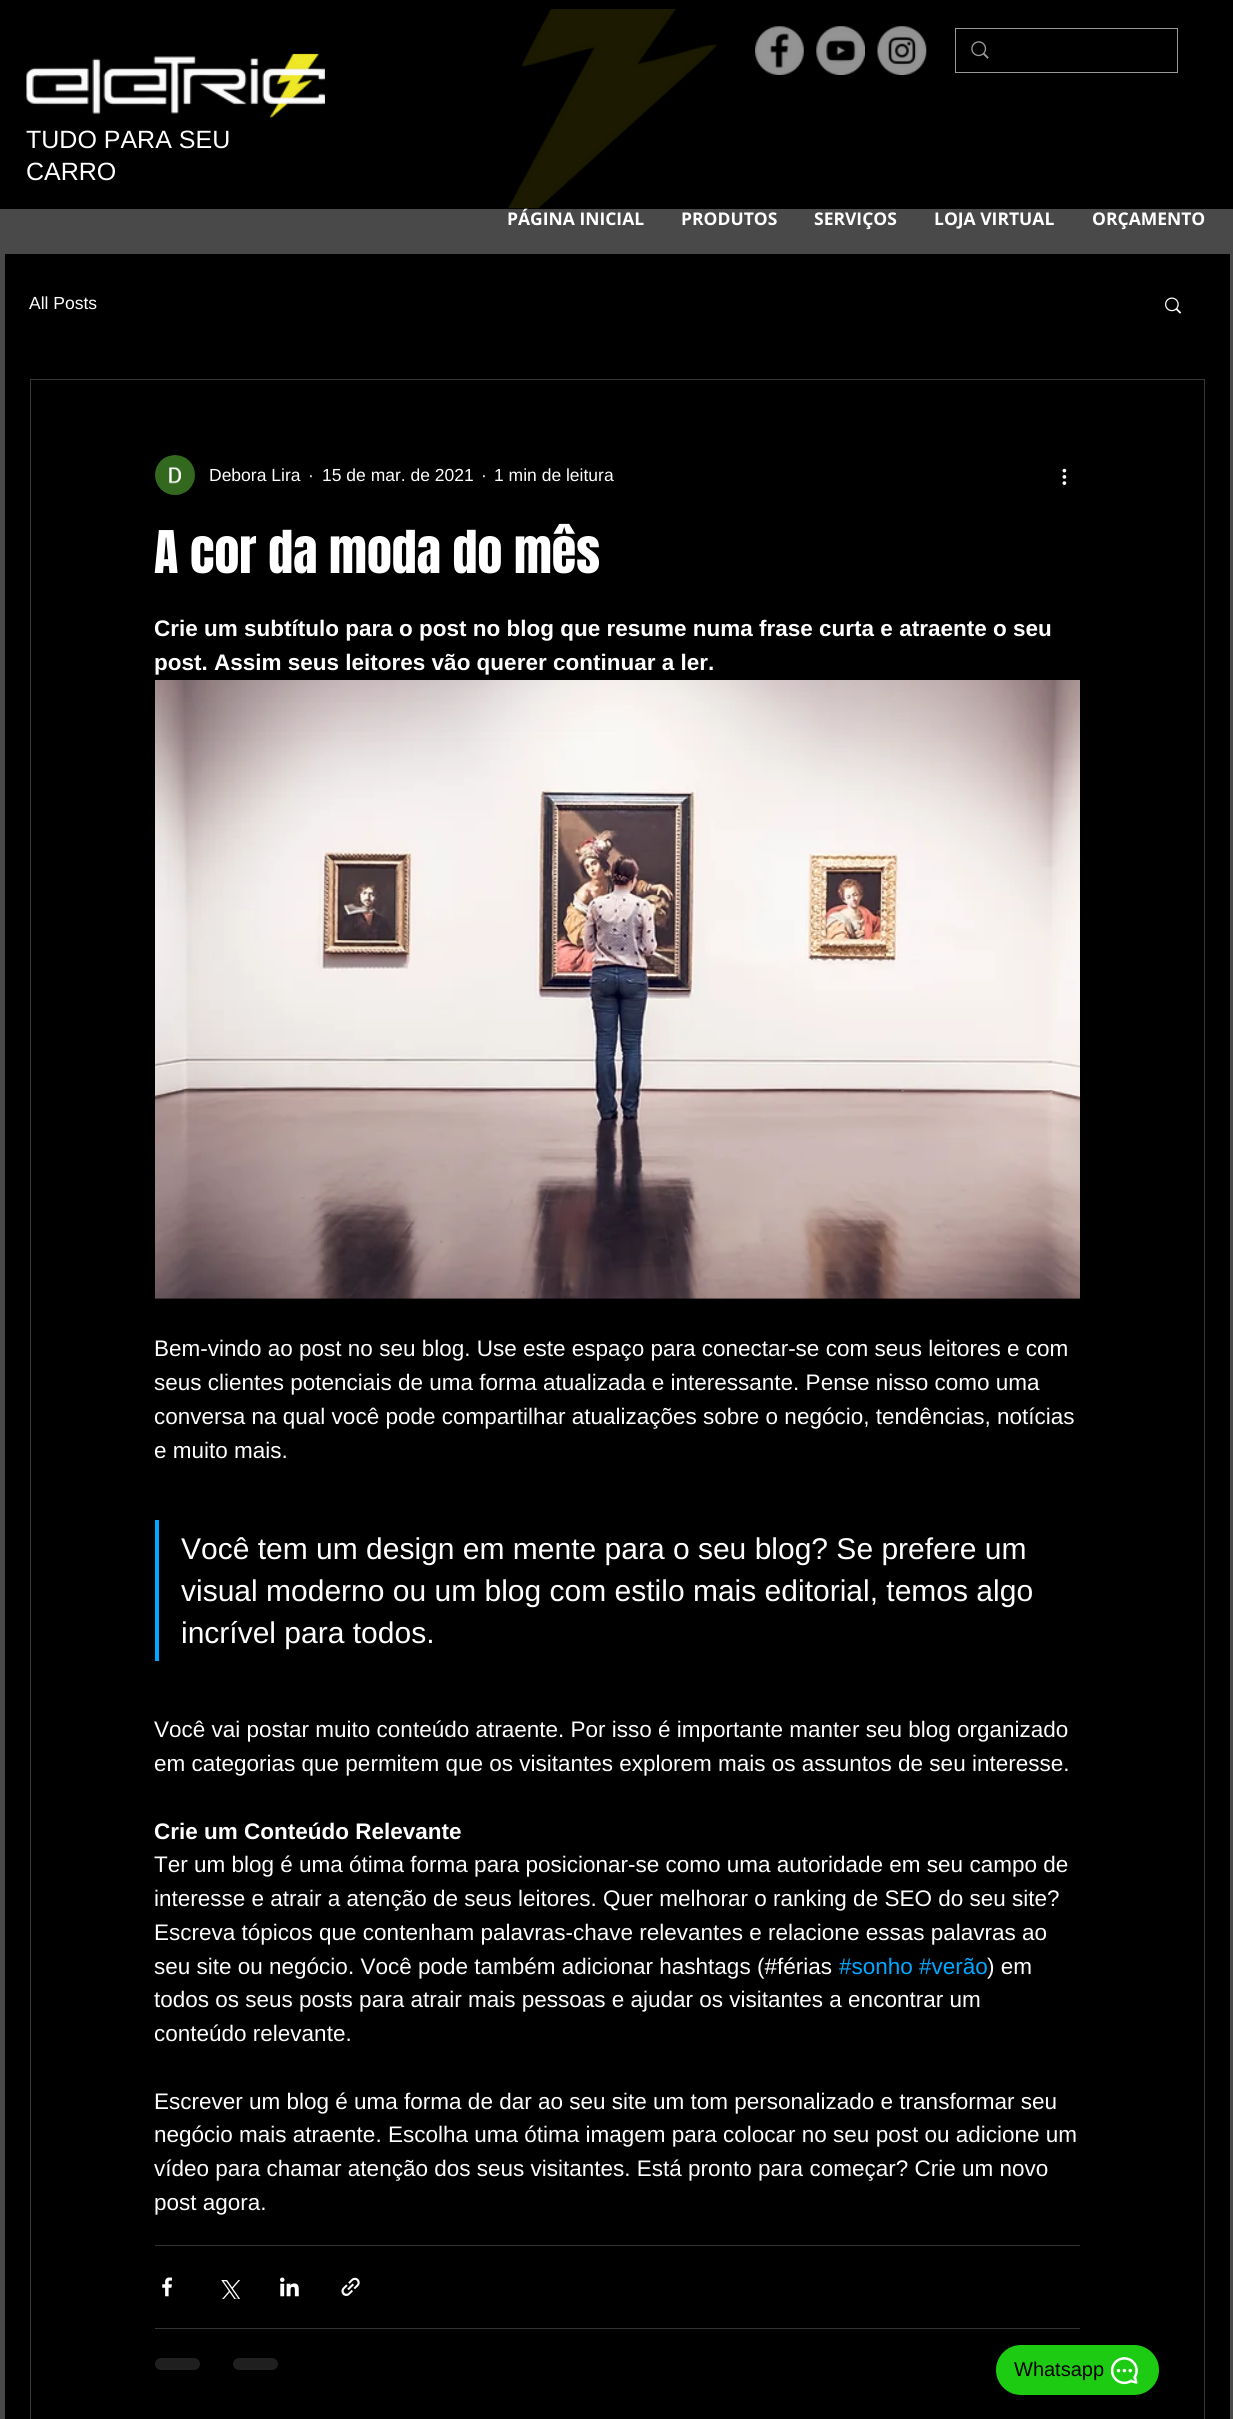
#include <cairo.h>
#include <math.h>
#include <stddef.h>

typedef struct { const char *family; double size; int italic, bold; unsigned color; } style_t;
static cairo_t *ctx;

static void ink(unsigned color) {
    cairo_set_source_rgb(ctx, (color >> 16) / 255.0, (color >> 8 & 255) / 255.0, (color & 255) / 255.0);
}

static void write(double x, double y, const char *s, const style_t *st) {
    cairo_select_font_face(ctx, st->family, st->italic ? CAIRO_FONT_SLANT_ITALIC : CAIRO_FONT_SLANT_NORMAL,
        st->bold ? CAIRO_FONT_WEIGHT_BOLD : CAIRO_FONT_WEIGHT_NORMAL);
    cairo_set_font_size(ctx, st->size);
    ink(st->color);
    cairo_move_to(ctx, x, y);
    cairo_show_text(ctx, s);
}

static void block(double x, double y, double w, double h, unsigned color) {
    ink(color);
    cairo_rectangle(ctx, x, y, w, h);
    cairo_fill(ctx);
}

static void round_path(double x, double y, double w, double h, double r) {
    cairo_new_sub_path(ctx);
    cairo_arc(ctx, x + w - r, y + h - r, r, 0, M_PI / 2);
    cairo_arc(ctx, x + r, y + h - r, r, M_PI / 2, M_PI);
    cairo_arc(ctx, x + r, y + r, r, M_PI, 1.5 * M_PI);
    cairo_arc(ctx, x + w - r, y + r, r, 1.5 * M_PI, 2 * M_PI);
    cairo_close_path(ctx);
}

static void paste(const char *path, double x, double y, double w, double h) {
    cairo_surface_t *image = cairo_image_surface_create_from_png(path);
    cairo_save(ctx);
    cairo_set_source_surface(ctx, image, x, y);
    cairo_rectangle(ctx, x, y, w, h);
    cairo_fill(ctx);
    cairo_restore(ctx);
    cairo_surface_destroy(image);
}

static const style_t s1 = {"Liberation Sans", 25, 0, 0, 0xffffff};
static const style_t s2 = {"Open Sans", 17.5, 0, 1, 0xffffff};
static const style_t s3 = {"Liberation Sans", 17.5, 0, 0, 0xffffff};
static const style_t s4 = {"Anton", 50, 0, 0, 0xffffff};
static const style_t s5 = {"Liberation Sans", 22.5, 0, 1, 0xffffff};
static const style_t s6 = {"Liberation Sans", 22.5, 0, 0, 0xffffff};
static const style_t s7 = {"Liberation Sans", 30, 0, 0, 0xffffff};
static const style_t s8 = {"Liberation Sans", 22.5, 0, 0, 0x00a9ff};
static const style_t s9 = {"Liberation Sans", 20, 0, 0, 0x000000};

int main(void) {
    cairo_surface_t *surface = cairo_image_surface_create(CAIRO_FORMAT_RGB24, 1233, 2419);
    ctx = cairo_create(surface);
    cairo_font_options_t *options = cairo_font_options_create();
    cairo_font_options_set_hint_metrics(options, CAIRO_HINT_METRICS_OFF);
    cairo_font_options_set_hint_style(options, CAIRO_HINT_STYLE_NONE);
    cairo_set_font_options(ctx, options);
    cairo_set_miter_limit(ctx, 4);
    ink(0x494949);
    cairo_paint(ctx);
    block(0, 0, 1233, 209, 0x000000);
    paste("pic1.png", 26, 53, 299, 65);
    paste("pic2.png", 508, 9, 209, 200);
    paste("pic3.png", 755, 26, 49, 49);
    paste("pic4.png", 816, 26, 49, 49);
    paste("pic5.png", 877, 26, 50, 49);
    cairo_rectangle(ctx, 955.5, 28.5, 222, 44);
    ink(0x999999);
    cairo_set_line_width(ctx, 1);
    cairo_stroke(ctx);
    paste("pic6.png", 971, 41, 18, 18);
    write(26, 148, "TUDO PARA SEU", &s1);
    write(26, 180, "CARRO", &s1);
    write(507, 225, "PÁGINA INICIAL", &s2);
    write(681, 225, "PRODUTOS", &s2);
    write(814, 225, "SERVIÇOS", &s2);
    write(934, 225, "LOJA VIRTUAL", &s2);
    write(1092, 225, "ORÇAMENTO", &s2);
    block(5, 254, 1225, 2165, 0x000000);
    write(29, 309, "All Posts", &s3);
    paste("pic7.png", 1165, 297, 17, 17);
    cairo_rectangle(ctx, 30.5, 379.5, 1174, 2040);
    ink(0x373737);
    cairo_stroke(ctx);
    paste("pic8.png", 155, 455, 40, 40);
    write(209, 481, "Debora Lira", &s3);
    write(308, 481, "·", &s3);
    write(322, 481, "15 de mar. de 2021", &s3);
    write(481, 481, "·", &s3);
    write(494, 481, "1 min de leitura", &s3);
    paste("pic9.png", 1062, 468, 5, 17);
    write(154, 573, "A cor da moda do mês", &s4);
    write(154, 636, "Crie um subtítulo para o post no blog que resume numa frase curta e atraente o seu", &s5);
    write(154, 670, "post. Assim seus leitores vão querer continuar a ler.", &s5);
    paste("pic10.png", 155, 680, 925, 619);
    write(154, 1356, "Bem-vindo ao post no seu blog. Use este espaço para conectar-se com seus leitores e com", &s6);
    write(154, 1390, "seus clientes potenciais de uma forma atualizada e interessante. Pense nisso como uma", &s6);
    write(154, 1424, "conversa na qual você pode compartilhar atualizações sobre o negócio, tendências, notícias", &s6);
    write(154, 1458, "e muito mais.", &s6);
    block(155, 1520, 4, 141, 0x00a9ff);
    write(181, 1559, "Você tem um design em mente para o seu blog? Se prefere um", &s7);
    write(181, 1601, "visual moderno ou um blog com estilo mais editorial, temos algo", &s7);
    write(181, 1643, "incrível para todos.", &s7);
    write(154, 1737, "Você vai postar muito conteúdo atraente. Por isso é importante manter seu blog organizado", &s6);
    write(154, 1771, "em categorias que permitem que os visitantes explorem mais os assuntos de seu interesse.", &s6);
    write(154, 1839, "Crie um Conteúdo Relevante", &s5);
    write(154, 1872, "Ter um blog é uma ótima forma para posicionar-se como uma autoridade em seu campo de", &s6);
    write(154, 1906, "interesse e atrair a atenção de seus leitores. Quer melhorar o ranking de SEO do seu site?", &s6);
    write(154, 1940, "Escreva tópicos que contenham palavras-chave relevantes e relacione essas palavras ao", &s6);
    write(154, 1974, "seu site ou negócio. Você pode também adicionar hashtags (#férias", &s6);
    write(839, 1974, "#sonho #verão", &s8);
    write(987, 1974, ") em", &s6);
    write(154, 2007, "todos os seus posts para atrair mais pessoas e ajudar os visitantes a encontrar um", &s6);
    write(154, 2041, "conteúdo relevante.", &s6);
    write(154, 2109, "Escrever um blog é uma forma de dar ao seu site um tom personalizado e transformar seu", &s6);
    write(154, 2142, "negócio mais atraente. Escolha uma ótima imagem para colocar no seu post ou adicione um", &s6);
    write(154, 2176, "vídeo para chamar atenção dos seus visitantes. Está pronto para começar? Crie um novo", &s6);
    write(154, 2210, "post agora.", &s6);
    block(155, 2245, 925, 1, 0x333333);
    paste("pic11.png", 162, 2277, 10, 20);
    paste("pic12.png", 221, 2280, 19, 19);
    paste("pic13.png", 280, 2277, 19, 20);
    paste("pic14.png", 341, 2277, 19, 19);
    block(155, 2328, 925, 1, 0x333333);
    ink(0x1f1f1f);
    round_path(155, 2358, 45, 12, 6);
    cairo_fill(ctx);
    round_path(233, 2358, 45, 12, 6);
    cairo_fill(ctx);
    ink(0x1ecb13);
    round_path(996, 2345, 163, 50, 25);
    cairo_fill(ctx);
    write(1014, 2376, "Whatsapp", &s9);
    paste("pic15.png", 1110, 2357, 28, 28);
    cairo_surface_write_to_png(surface, "screenshot.png");
    cairo_font_options_destroy(options);
    cairo_destroy(ctx);
    cairo_surface_destroy(surface);
    return 0;
}
